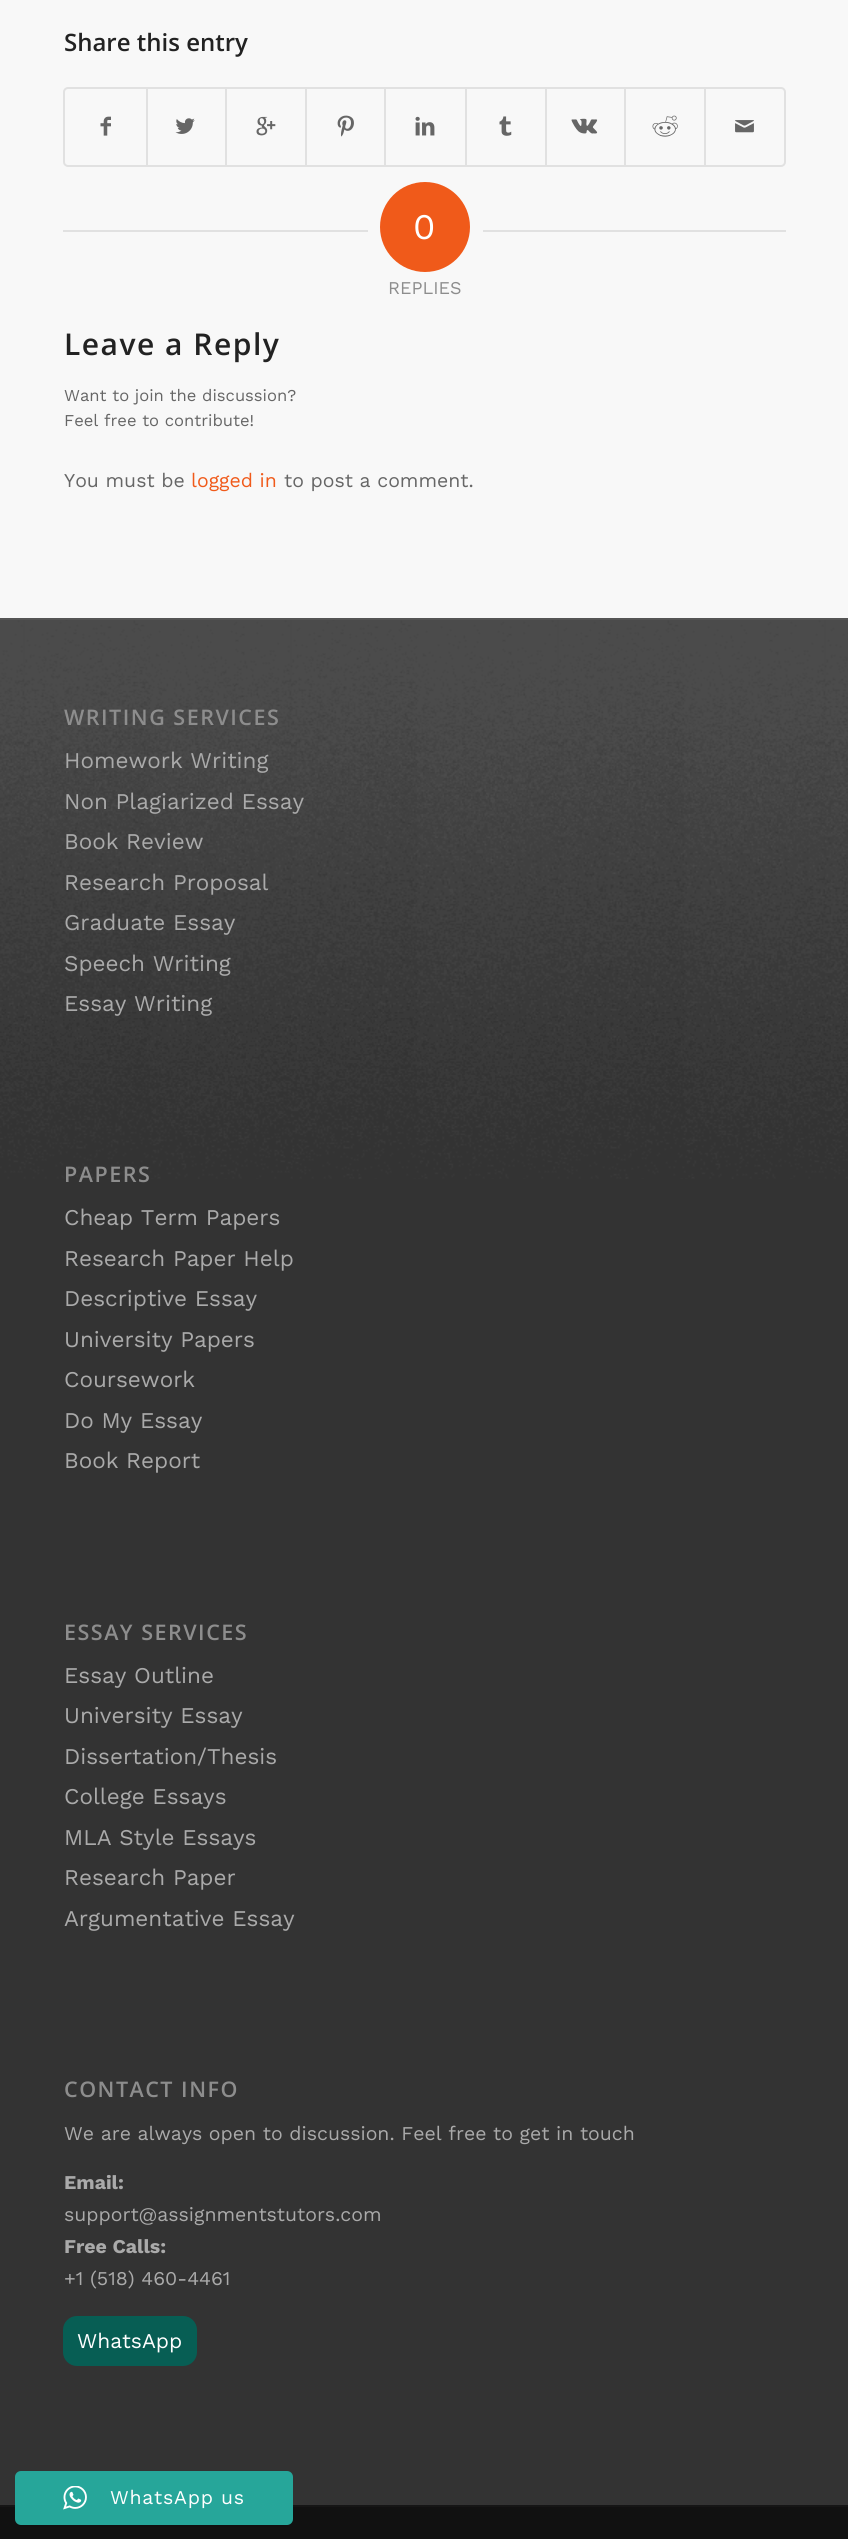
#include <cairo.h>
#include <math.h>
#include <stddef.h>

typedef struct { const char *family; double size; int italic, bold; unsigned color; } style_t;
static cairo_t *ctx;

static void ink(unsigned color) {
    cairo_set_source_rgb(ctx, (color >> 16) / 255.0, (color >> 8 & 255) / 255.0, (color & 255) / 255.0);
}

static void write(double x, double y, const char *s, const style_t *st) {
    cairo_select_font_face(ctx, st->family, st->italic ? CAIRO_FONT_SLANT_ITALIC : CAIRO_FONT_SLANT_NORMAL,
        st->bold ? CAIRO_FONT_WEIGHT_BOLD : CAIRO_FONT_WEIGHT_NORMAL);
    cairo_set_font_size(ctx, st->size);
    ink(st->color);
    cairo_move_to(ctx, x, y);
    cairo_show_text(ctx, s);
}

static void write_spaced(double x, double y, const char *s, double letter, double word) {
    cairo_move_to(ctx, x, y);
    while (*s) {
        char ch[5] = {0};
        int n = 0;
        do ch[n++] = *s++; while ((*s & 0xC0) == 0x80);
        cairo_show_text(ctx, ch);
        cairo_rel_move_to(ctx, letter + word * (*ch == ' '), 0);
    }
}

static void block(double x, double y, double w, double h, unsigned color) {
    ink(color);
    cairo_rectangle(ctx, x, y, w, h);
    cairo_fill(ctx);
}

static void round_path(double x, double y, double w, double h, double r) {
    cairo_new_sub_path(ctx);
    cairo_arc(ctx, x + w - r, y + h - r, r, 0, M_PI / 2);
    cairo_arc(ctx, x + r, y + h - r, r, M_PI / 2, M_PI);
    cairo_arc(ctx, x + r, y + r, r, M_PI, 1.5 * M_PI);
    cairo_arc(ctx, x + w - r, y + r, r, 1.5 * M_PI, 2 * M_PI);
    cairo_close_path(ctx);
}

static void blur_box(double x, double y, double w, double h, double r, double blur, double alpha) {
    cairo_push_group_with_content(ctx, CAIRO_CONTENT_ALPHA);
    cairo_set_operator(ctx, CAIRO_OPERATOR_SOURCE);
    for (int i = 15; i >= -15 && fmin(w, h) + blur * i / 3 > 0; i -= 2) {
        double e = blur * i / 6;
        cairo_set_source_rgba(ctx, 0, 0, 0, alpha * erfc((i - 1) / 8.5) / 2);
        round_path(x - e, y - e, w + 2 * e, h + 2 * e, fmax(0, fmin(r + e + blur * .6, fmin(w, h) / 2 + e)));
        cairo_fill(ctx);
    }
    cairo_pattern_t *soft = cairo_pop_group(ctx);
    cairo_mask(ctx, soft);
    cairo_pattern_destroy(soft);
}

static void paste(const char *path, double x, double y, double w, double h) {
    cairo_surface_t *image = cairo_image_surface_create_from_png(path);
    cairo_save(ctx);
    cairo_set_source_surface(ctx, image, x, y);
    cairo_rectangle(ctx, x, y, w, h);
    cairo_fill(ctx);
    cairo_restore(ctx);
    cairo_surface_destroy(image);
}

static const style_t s1 = {"Open Sans SemiBold", 24, 0, 0, 0x222222};
static const style_t s2 = {"Work Sans", 36, 0, 0, 0xffffff};
static const style_t s3 = {"Work Sans", 18, 0, 0, 0x8d8d8d};
static const style_t s4 = {"Work Sans", 16.6, 0, 0, 0x666666};
static const style_t s5 = {"Work Sans", 19.5, 0, 0, 0x666666};
static const style_t s6 = {"Work Sans", 19.5, 0, 0, 0xf05a1a};
static const style_t s7 = {"Work Sans", 22.5, 0, 0, 0xaaaaaa};
static const style_t s8 = {"Work Sans", 19.5, 0, 0, 0xaaaaaa};
static const style_t s9 = {"Work Sans", 19.5, 0, 1, 0xaaaaaa};
static const style_t s10 = {"Work Sans", 21, 0, 0, 0xffffff};

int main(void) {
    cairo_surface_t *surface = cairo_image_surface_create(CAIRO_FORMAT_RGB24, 848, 2539);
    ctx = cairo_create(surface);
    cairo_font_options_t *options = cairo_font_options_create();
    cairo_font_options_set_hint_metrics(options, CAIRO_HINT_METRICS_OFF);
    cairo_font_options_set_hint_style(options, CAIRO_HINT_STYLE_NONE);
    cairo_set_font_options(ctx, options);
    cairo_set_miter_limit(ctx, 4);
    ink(0xf8f8f8);
    cairo_paint(ctx);
    write(64, 51, "Share this entry", &s1);
    round_path(64, 88, 721, 78, 4);
    ink(0xe1e1e1);
    cairo_stroke(ctx);
    paste("pic1.png", 100, 116, 11, 20);
    block(146, 89, 2, 76, 0xe1e1e1);
    paste("pic2.png", 175, 118, 20, 16);
    block(225, 89, 2, 76, 0xe1e1e1);
    paste("pic3.png", 256, 116, 20, 20);
    block(305, 89, 2, 76, 0xe1e1e1);
    paste("pic4.png", 337, 115, 17, 22);
    block(384, 89, 2, 76, 0xe1e1e1);
    paste("pic5.png", 415, 116, 20, 20);
    block(465, 89, 2, 76, 0xe1e1e1);
    paste("pic6.png", 499, 116, 13, 20);
    block(545, 89, 2, 76, 0xe1e1e1);
    paste("pic7.png", 571, 118, 27, 16);
    block(624, 89, 2, 76, 0xe1e1e1);
    paste("pic8.png", 652, 115, 26, 22);
    block(704, 89, 2, 76, 0xe1e1e1);
    paste("pic9.png", 735, 120, 19, 13);
    block(63, 230, 305, 2, 0xe1e1e1);
    ink(0xf05a1a);
    cairo_arc(ctx, 425, 227, 45, 0, 2 * M_PI);
    cairo_fill(ctx);
    write(413, 239, "0", &s2);
    block(483, 230, 303, 2, 0xe1e1e1);
    write(388, 294, "REPLIES", &s3);
    cairo_select_font_face(ctx, "Open Sans SemiBold", CAIRO_FONT_SLANT_NORMAL, CAIRO_FONT_WEIGHT_NORMAL);
    cairo_set_font_size(ctx, 30);
    ink(0x222222);
    write_spaced(64, 355, "Leave a Reply", 1.5, 0);
    write(64, 401, "Want to join the discussion?", &s4);
    write(64, 426, "Feel free to contribute!", &s4);
    write(64, 487, "You must be", &s5);
    write(191, 487, "logged in", &s6);
    write(284, 487, "to post a comment.", &s5);
    block(0, 620, 848, 1885, 0x333333);
    paste("pic10.png", 0, 620, 848, 559);
    block(0, 618, 848, 2, 0x555555);
    cairo_select_font_face(ctx, "Open Sans SemiBold", CAIRO_FONT_SLANT_NORMAL, CAIRO_FONT_WEIGHT_NORMAL);
    cairo_set_font_size(ctx, 21.5);
    ink(0x8d8d8d);
    write_spaced(64, 725, "WRITING SERVICES", 1.5, 0);
    write(64, 768, "Homework Writing", &s7);
    write(64, 809, "Non Plagiarized Essay", &s7);
    write(64, 849, "Book Review", &s7);
    write(64, 890, "Research Proposal", &s7);
    write(64, 930, "Graduate Essay", &s7);
    write(64, 971, "Speech Writing", &s7);
    write(64, 1011, "Essay Writing", &s7);
    cairo_select_font_face(ctx, "Open Sans SemiBold", CAIRO_FONT_SLANT_NORMAL, CAIRO_FONT_WEIGHT_NORMAL);
    cairo_set_font_size(ctx, 21.5);
    ink(0x8d8d8d);
    write_spaced(64, 1182, "PAPERS", 1.5, 0);
    write(64, 1225, "Cheap Term Papers", &s7);
    write(64, 1266, "Research Paper Help", &s7);
    write(64, 1306, "Descriptive Essay", &s7);
    write(64, 1347, "University Papers", &s7);
    write(64, 1387, "Coursework", &s7);
    write(64, 1428, "Do My Essay", &s7);
    write(64, 1468, "Book Report", &s7);
    cairo_select_font_face(ctx, "Open Sans SemiBold", CAIRO_FONT_SLANT_NORMAL, CAIRO_FONT_WEIGHT_NORMAL);
    cairo_set_font_size(ctx, 21.5);
    ink(0x8d8d8d);
    write_spaced(64, 1640, "ESSAY SERVICES", 1.5, 0);
    write(64, 1683, "Essay Outline", &s7);
    write(64, 1723, "University Essay", &s7);
    write(64, 1764, "Dissertation/Thesis", &s7);
    write(64, 1804, "College Essays", &s7);
    write(64, 1845, "MLA Style Essays", &s7);
    write(64, 1885, "Research Paper", &s7);
    write(64, 1926, "Argumentative Essay", &s7);
    cairo_select_font_face(ctx, "Open Sans SemiBold", CAIRO_FONT_SLANT_NORMAL, CAIRO_FONT_WEIGHT_NORMAL);
    cairo_set_font_size(ctx, 21.5);
    ink(0x8d8d8d);
    write_spaced(64, 2097, "CONTACT INFO", 1.5, 0);
    write(64, 2140, "We are always open to discussion. Feel free to get in touch", &s8);
    write(64, 2189, "Email:", &s9);
    write(64, 2221, "support@assignmentstutors.com", &s8);
    write(64, 2253, "Free Calls:", &s9);
    write(64, 2285, "+1 (518) 460-4461", &s8);
    ink(0x075e54);
    round_path(63, 2316, 134, 50, 14);
    cairo_fill(ctx);
    write(77, 2348, "WhatsApp", &s10);
    block(0, 2507, 848, 32, 0x111111);
    block(0, 2505, 848, 2, 0x161616);
    ink(0x000000);
    blur_box(18, 2478, 272, 48, 3, 1, 0.2);
    ink(0x26a69a);
    round_path(15, 2471, 278, 54, 6);
    cairo_fill(ctx);
    paste("pic11.png", 63, 2486, 24, 24);
    cairo_set_font_size(ctx, 19.5);
    ink(0xffffff);
    write_spaced(110, 2504, "WhatsApp us", 0.75, 0);
    cairo_surface_write_to_png(surface, "screenshot.png");
    cairo_font_options_destroy(options);
    cairo_destroy(ctx);
    cairo_surface_destroy(surface);
    return 0;
}
